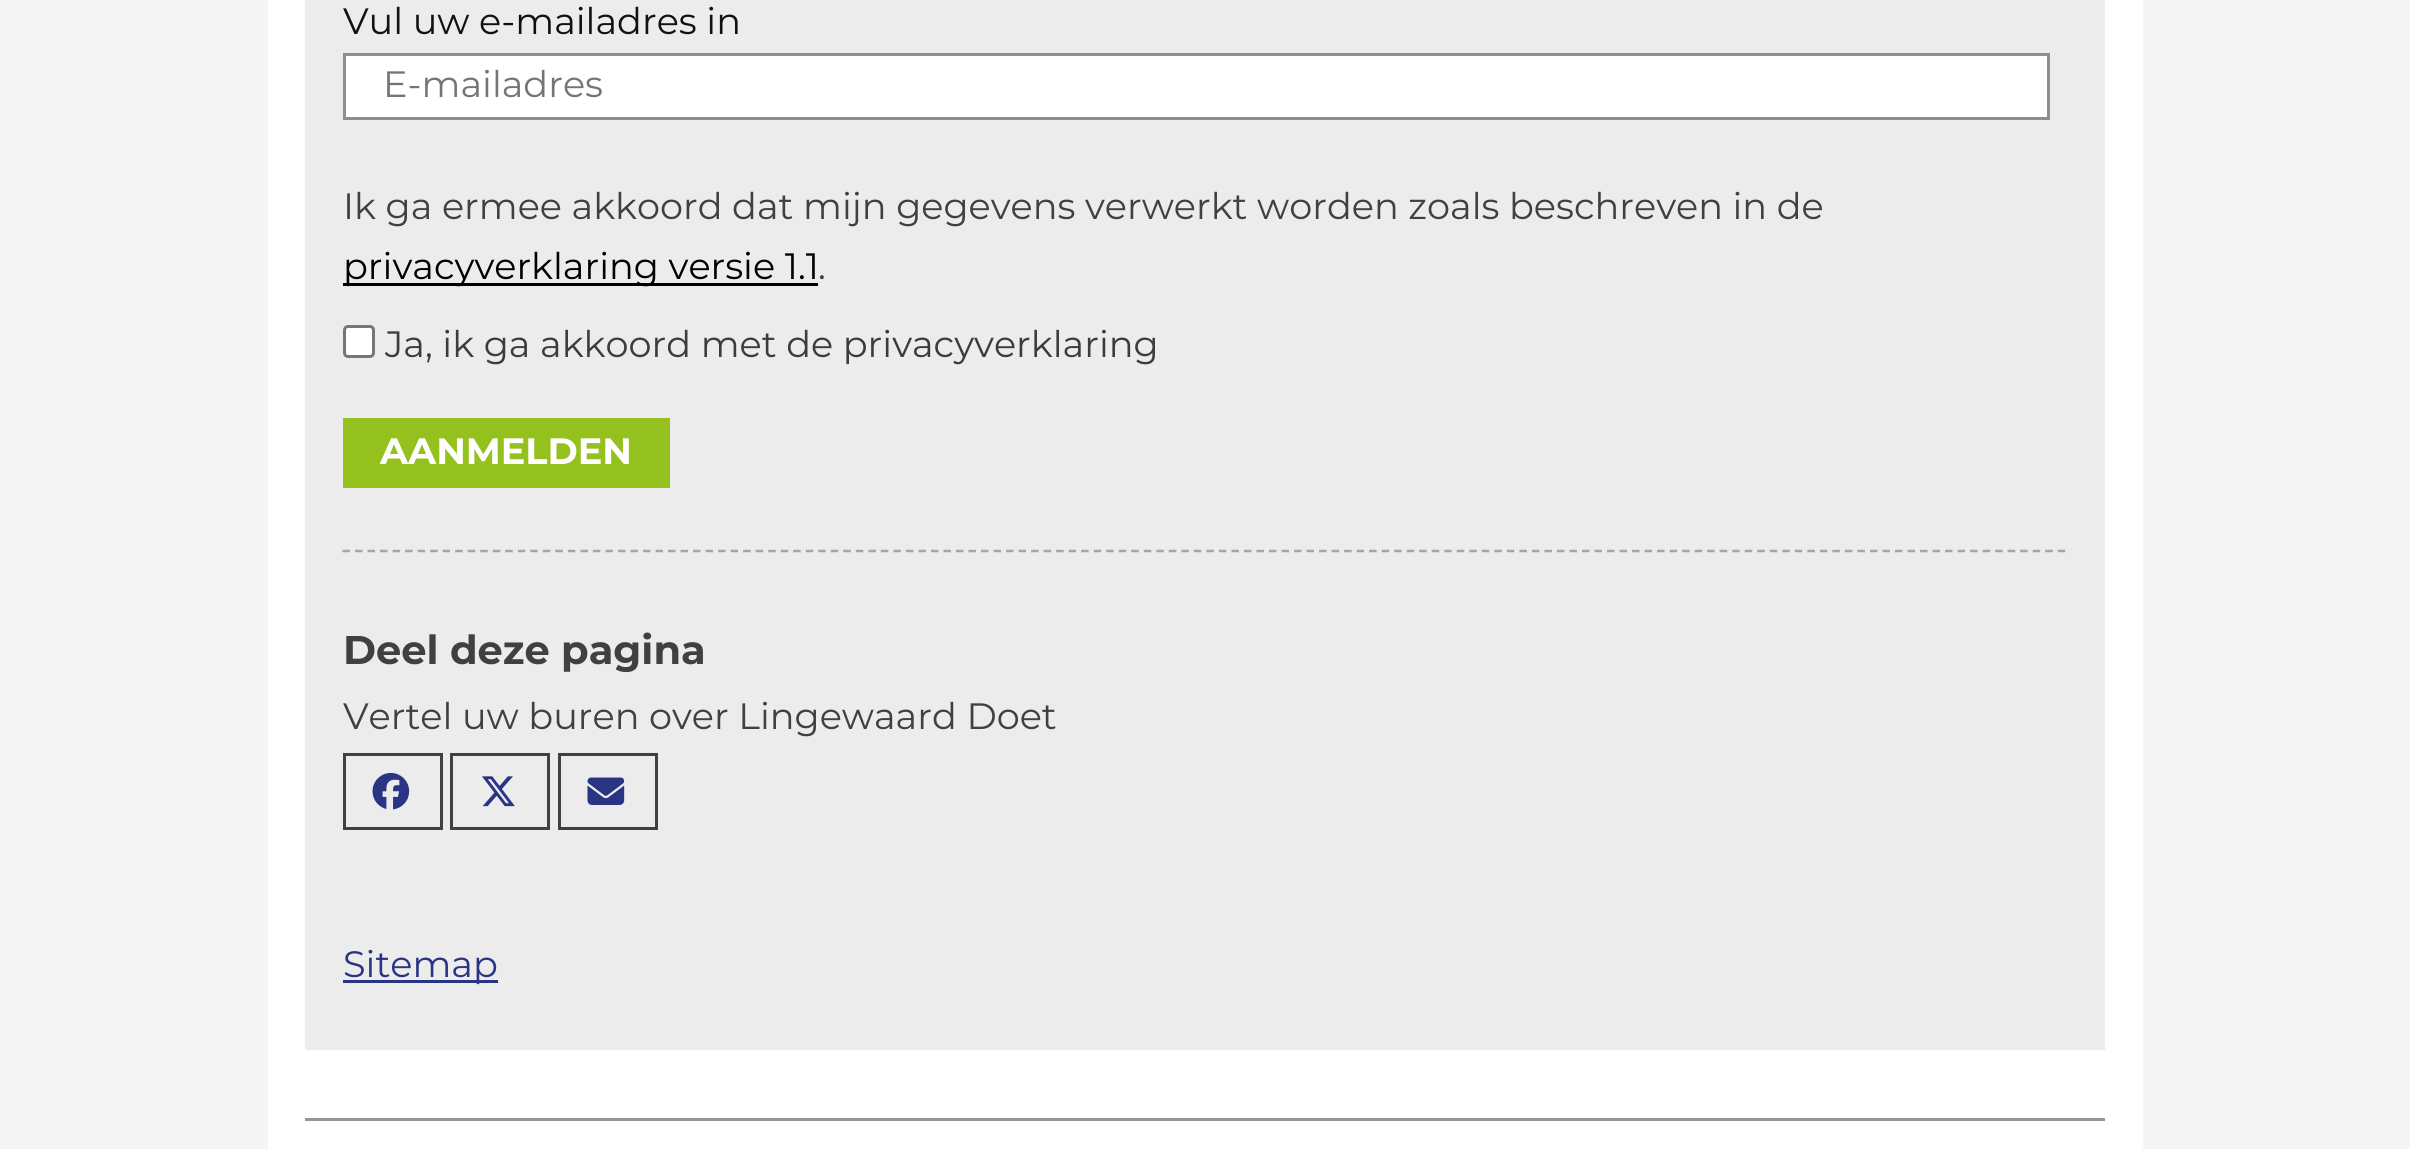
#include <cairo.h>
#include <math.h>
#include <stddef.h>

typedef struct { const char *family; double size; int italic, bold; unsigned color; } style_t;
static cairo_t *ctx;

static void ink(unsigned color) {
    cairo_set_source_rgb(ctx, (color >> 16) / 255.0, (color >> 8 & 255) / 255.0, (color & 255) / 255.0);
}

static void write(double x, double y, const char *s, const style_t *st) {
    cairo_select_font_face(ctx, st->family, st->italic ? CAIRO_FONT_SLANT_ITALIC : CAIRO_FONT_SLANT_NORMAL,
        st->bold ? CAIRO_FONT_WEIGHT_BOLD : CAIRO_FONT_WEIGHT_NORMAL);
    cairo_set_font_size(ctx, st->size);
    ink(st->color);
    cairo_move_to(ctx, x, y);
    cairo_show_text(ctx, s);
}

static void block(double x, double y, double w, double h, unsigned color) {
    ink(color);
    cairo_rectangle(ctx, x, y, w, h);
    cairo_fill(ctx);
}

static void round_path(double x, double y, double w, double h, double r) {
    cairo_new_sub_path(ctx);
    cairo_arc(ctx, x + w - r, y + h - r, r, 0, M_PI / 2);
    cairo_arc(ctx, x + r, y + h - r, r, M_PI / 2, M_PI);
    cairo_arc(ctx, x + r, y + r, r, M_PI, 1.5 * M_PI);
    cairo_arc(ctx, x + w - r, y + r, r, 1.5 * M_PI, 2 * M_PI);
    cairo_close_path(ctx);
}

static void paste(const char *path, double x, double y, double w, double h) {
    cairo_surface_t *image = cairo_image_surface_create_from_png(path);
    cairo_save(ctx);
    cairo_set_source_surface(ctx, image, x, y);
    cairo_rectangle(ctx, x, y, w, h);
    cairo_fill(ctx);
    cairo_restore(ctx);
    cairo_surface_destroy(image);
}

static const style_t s1 = {"Montserrat", 36.65, 0, 0, 0x111111};
static const style_t s2 = {"Montserrat", 36.65, 0, 0, 0x757575};
static const style_t s3 = {"Montserrat", 36.65, 0, 0, 0x404041};
static const style_t s4 = {"Montserrat", 36.65, 0, 0, 0x000004};
static const style_t s5 = {"Montserrat", 36.65, 0, 0, 0x3c3c3b};
static const style_t s6 = {"Montserrat", 36.65, 0, 1, 0xffffff};
static const style_t s7 = {"Montserrat", 40, 0, 1, 0x404041};
static const style_t s8 = {"Montserrat", 36.65, 0, 0, 0x293484};

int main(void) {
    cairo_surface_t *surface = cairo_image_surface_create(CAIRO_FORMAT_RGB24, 2410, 1149);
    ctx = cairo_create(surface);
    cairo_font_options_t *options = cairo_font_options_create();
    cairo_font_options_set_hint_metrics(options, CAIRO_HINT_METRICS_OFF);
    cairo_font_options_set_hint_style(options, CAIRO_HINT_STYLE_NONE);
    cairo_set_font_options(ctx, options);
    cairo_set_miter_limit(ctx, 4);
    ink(0xf5f5f5);
    cairo_paint(ctx);
    block(268, 0, 1875, 1149, 0xffffff);
    block(305, 0, 1800, 1050, 0xebeceb);
    cairo_new_path(ctx);
    cairo_move_to(ctx, 342.5, 551);
    cairo_line_to(ctx, 2067.5, 551);
    ink(0xa5a5a5);
    cairo_set_line_width(ctx, 2.5);
    cairo_set_dash(ctx, (double[]){7.5, 5.02}, 2, 0);
    cairo_stroke(ctx);
    write(343, 34, "Vul uw e-mailadres in", &s1);
    ink(0xffffff);
    cairo_rectangle(ctx, 344.5, 54.5, 1704, 64);
    cairo_fill_preserve(ctx);
    ink(0x918d8d);
    cairo_set_line_width(ctx, 3);
    cairo_set_dash(ctx, NULL, 0, 0);
    cairo_stroke(ctx);
    write(383, 97, "E-mailadres", &s2);
    write(343, 219, "Ik ga ermee akkoord dat mijn gegevens verwerkt worden zoals beschreven in de", &s3);
    block(343, 283, 475, 3, 0x000004);
    write(343, 279, "privacyverklaring versie 1.1", &s4);
    write(818, 279, ".", &s3);
    ink(0xffffff);
    round_path(344.5, 326.5, 29, 30, 3.5);
    cairo_fill_preserve(ctx);
    ink(0x767676);
    cairo_stroke(ctx);
    write(385, 357, "Ja, ik ga akkoord met de privacyverklaring", &s5);
    block(343, 418, 327, 70, 0x95c11f);
    write(380, 464, "AANMELDEN", &s6);
    write(343, 664, "Deel deze pagina", &s7);
    write(343, 729, "Vertel uw buren over Lingewaard Doet", &s3);
    cairo_rectangle(ctx, 344.5, 754.5, 97, 74);
    cairo_stroke(ctx);
    paste("pic1.png", 372, 772, 38, 38);
    cairo_rectangle(ctx, 451.5, 754.5, 97, 74);
    cairo_stroke(ctx);
    paste("pic2.png", 482, 776, 33, 31);
    cairo_rectangle(ctx, 559.5, 754.5, 97, 74);
    cairo_stroke(ctx);
    paste("pic3.png", 587, 777, 38, 28);
    block(343, 980, 155, 3, 0x293484);
    write(343, 977, "Sitemap", &s8);
    block(305, 1118, 1800, 3, 0x939598);
    cairo_surface_write_to_png(surface, "screenshot.png");
    cairo_font_options_destroy(options);
    cairo_destroy(ctx);
    cairo_surface_destroy(surface);
    return 0;
}
